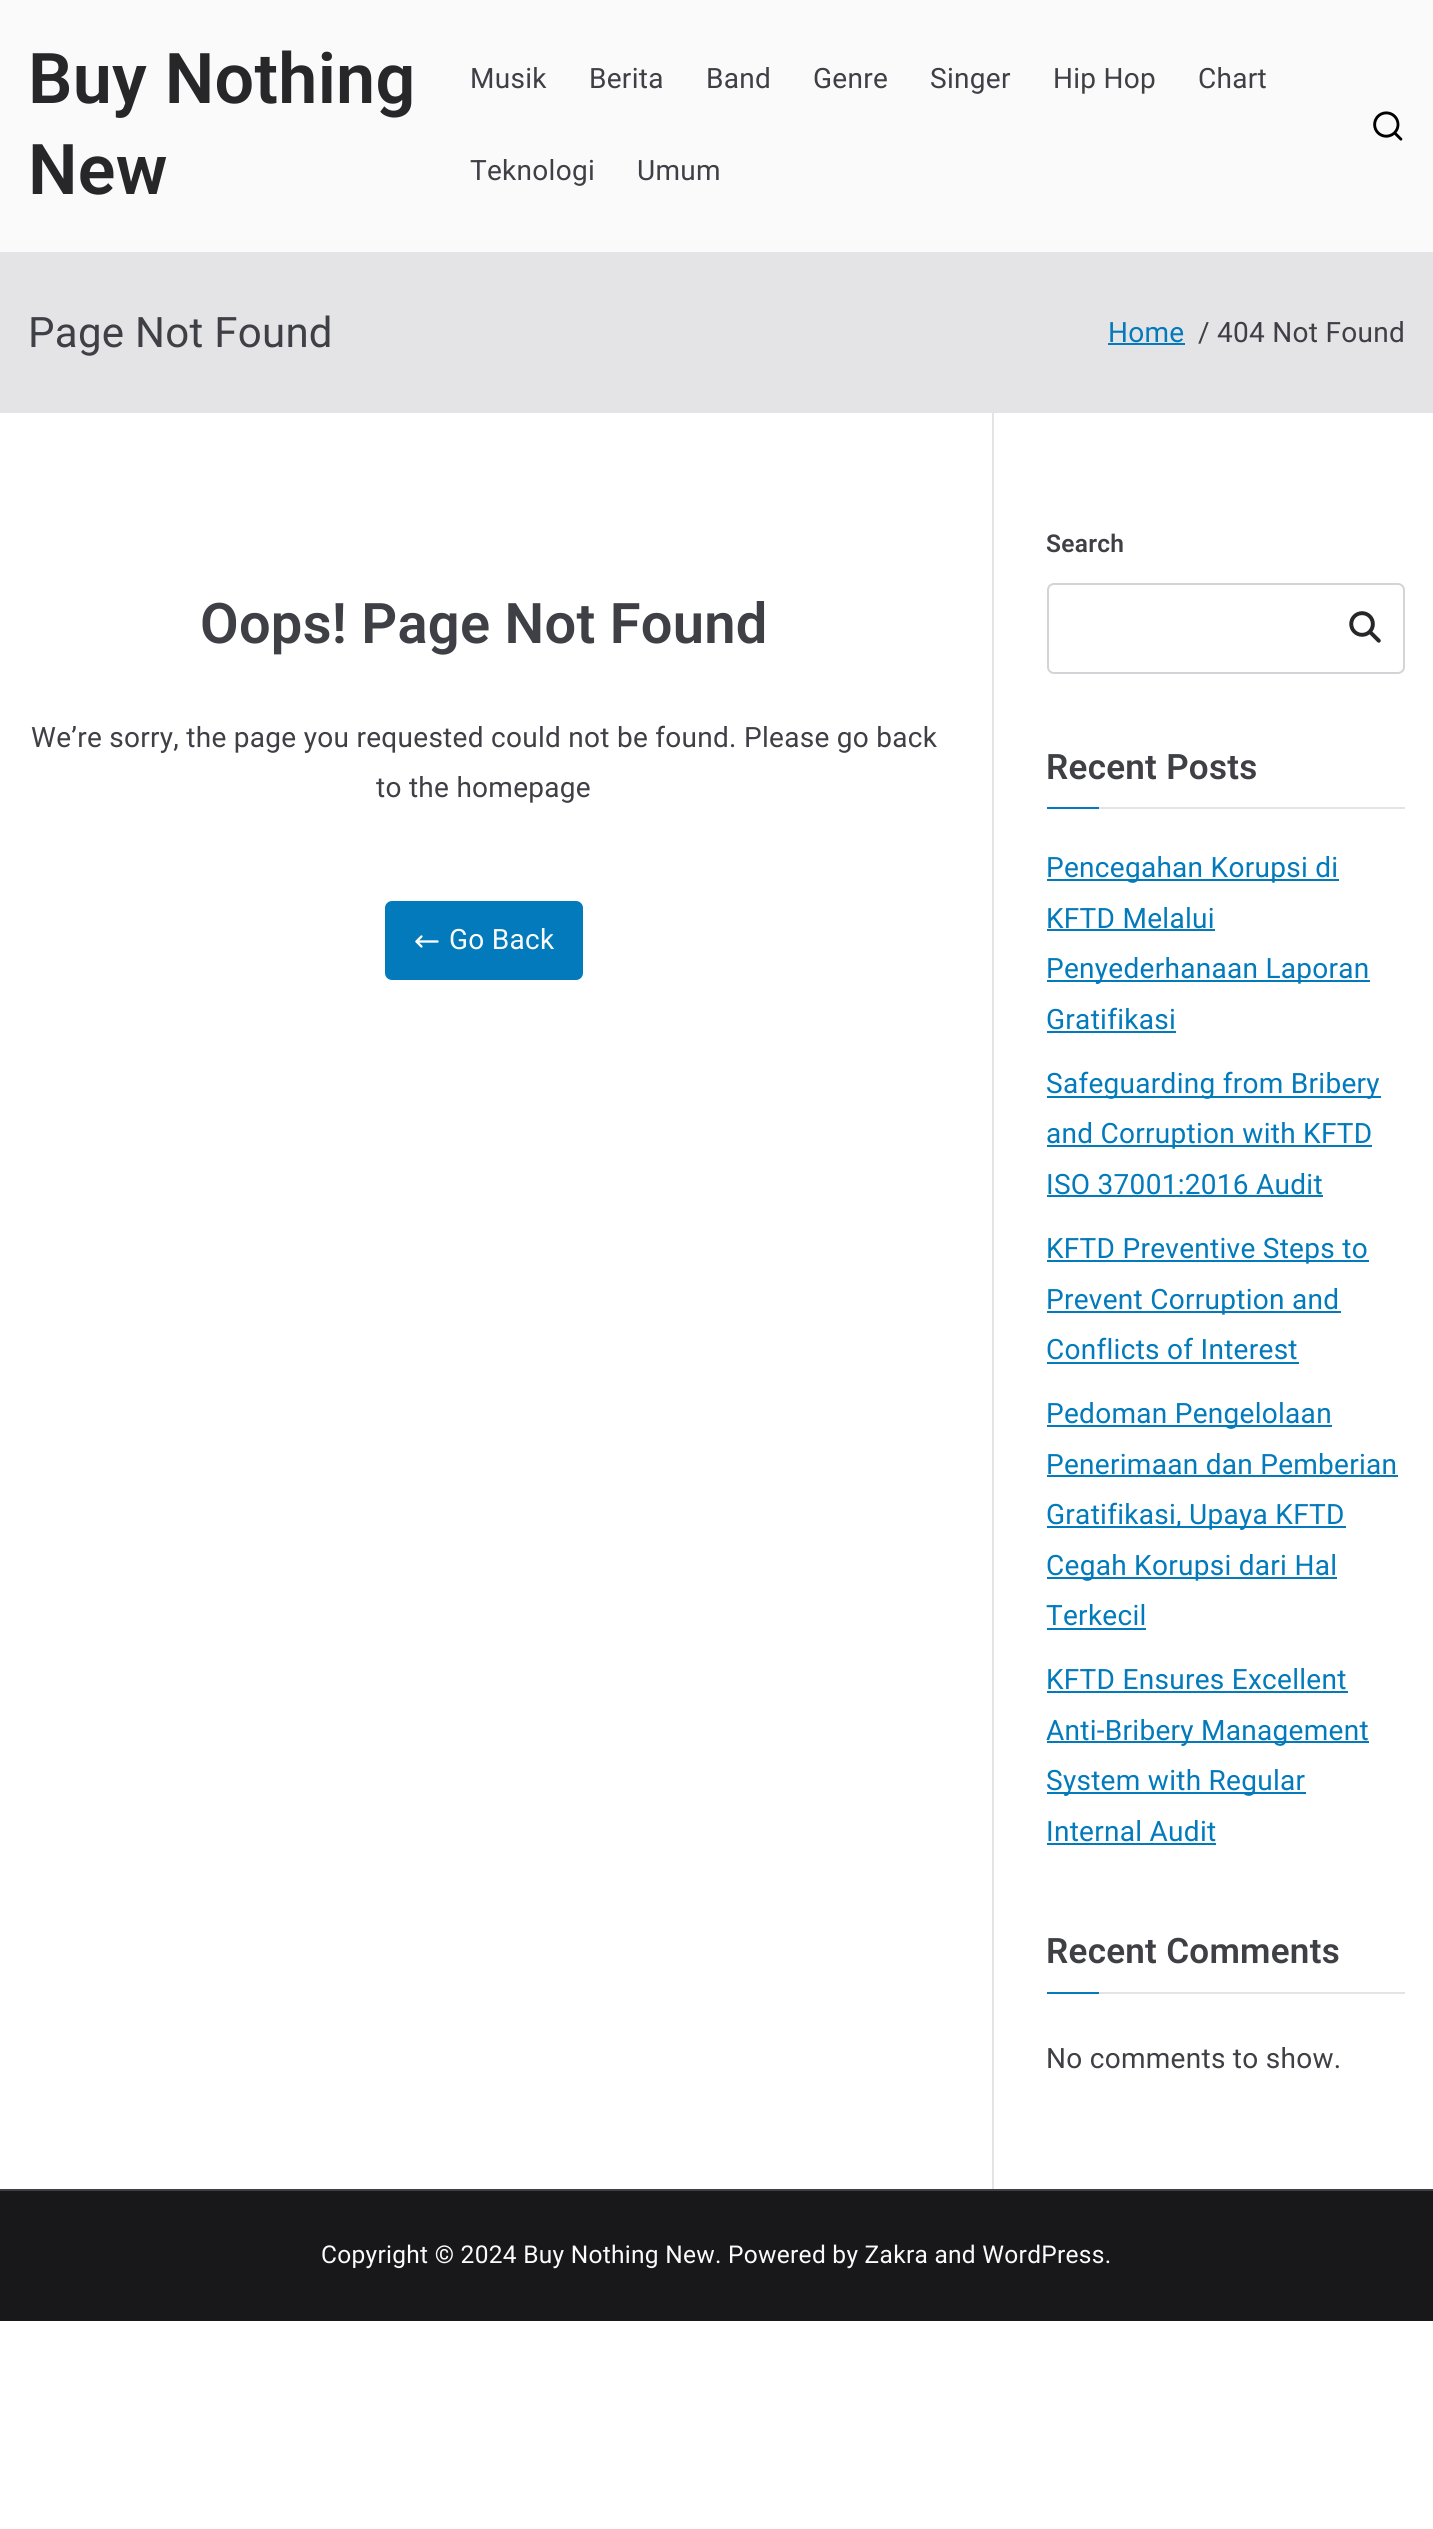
#include <cairo.h>
#include <math.h>
#include <stddef.h>

static cairo_t *ctx;

static void ink(unsigned color) {
    cairo_set_source_rgb(ctx, (color >> 16) / 255.0, (color >> 8 & 255) / 255.0, (color & 255) / 255.0);
}

static void write_spaced(double x, double y, const char *s, double letter, double word) {
    cairo_move_to(ctx, x, y);
    while (*s) {
        char ch[5] = {0};
        int n = 0;
        do ch[n++] = *s++; while ((*s & 0xC0) == 0x80);
        cairo_show_text(ctx, ch);
        cairo_rel_move_to(ctx, letter + word * (*ch == ' '), 0);
    }
}

static void block(double x, double y, double w, double h, unsigned color) {
    ink(color);
    cairo_rectangle(ctx, x, y, w, h);
    cairo_fill(ctx);
}

static void round_path(double x, double y, double w, double h, double r) {
    cairo_new_sub_path(ctx);
    cairo_arc(ctx, x + w - r, y + h - r, r, 0, M_PI / 2);
    cairo_arc(ctx, x + r, y + h - r, r, M_PI / 2, M_PI);
    cairo_arc(ctx, x + r, y + r, r, M_PI, 1.5 * M_PI);
    cairo_arc(ctx, x + w - r, y + r, r, 1.5 * M_PI, 2 * M_PI);
    cairo_close_path(ctx);
}

static void paste(const char *path, double x, double y, double w, double h) {
    cairo_surface_t *image = cairo_image_surface_create_from_png(path);
    cairo_save(ctx);
    cairo_set_source_surface(ctx, image, x, y);
    cairo_rectangle(ctx, x, y, w, h);
    cairo_fill(ctx);
    cairo_restore(ctx);
    cairo_surface_destroy(image);
}

int main(void) {
    cairo_surface_t *surface = cairo_image_surface_create(CAIRO_FORMAT_RGB24, 1433, 2529);
    ctx = cairo_create(surface);
    cairo_font_options_t *options = cairo_font_options_create();
    cairo_font_options_set_hint_metrics(options, CAIRO_HINT_METRICS_OFF);
    cairo_font_options_set_hint_style(options, CAIRO_HINT_STYLE_NONE);
    cairo_set_font_options(ctx, options);
    cairo_set_miter_limit(ctx, 4);
    ink(0xffffff);
    cairo_paint(ctx);
    block(0, 0, 1433, 252, 0xfafafa);
    block(0, 252, 1433, 161, 0xe4e4e7);
    cairo_select_font_face(ctx, "Roboto SemiBold", CAIRO_FONT_SLANT_NORMAL, CAIRO_FONT_WEIGHT_NORMAL);
    cairo_set_font_size(ctx, 70);
    ink(0x27272a);
    write_spaced(28, 103, "Buy Nothing", 0.28, 0);
    write_spaced(28, 194, "New", 0.28, 0);
    cairo_select_font_face(ctx, "Roboto", CAIRO_FONT_SLANT_NORMAL, CAIRO_FONT_WEIGHT_NORMAL);
    cairo_set_font_size(ctx, 28);
    ink(0x3f3f46);
    write_spaced(470, 88, "Musik", 0.28, 0);
    write_spaced(589, 88, "Berita", 0.28, 0);
    write_spaced(706, 88, "Band", 0.28, 0);
    write_spaced(813, 88, "Genre", 0.28, 0);
    write_spaced(930, 88, "Singer", 0.28, 0);
    write_spaced(1053, 88, "Hip Hop", 0.28, 0);
    write_spaced(1198, 88, "Chart", 0.28, 0);
    write_spaced(470, 180, "Teknologi", 0.28, 0);
    write_spaced(637, 180, "Umum", 0.28, 0);
    paste("pic1.png", 1373, 111, 30, 30);
    cairo_set_font_size(ctx, 42);
    write_spaced(28, 347, "Page Not Found", 0.28, 0);
    cairo_set_font_size(ctx, 28);
    ink(0x027abb);
    write_spaced(1108, 342, "Home", 0.28, 0);
    block(1108, 343, 77, 2, 0x027abb);
    ink(0x3f3f46);
    write_spaced(1198, 342, "/ 404 Not Found", 0.28, 0);
    cairo_select_font_face(ctx, "Roboto SemiBold", CAIRO_FONT_SLANT_NORMAL, CAIRO_FONT_WEIGHT_NORMAL);
    cairo_set_font_size(ctx, 56);
    write_spaced(200, 643, "Oops! Page Not Found", 0.28, 0);
    cairo_select_font_face(ctx, "Roboto", CAIRO_FONT_SLANT_NORMAL, CAIRO_FONT_WEIGHT_NORMAL);
    cairo_set_font_size(ctx, 28);
    write_spaced(31, 747, "We’re sorry, the page you requested could not be found. Please go back", 0.28, 0);
    write_spaced(376, 797, "to the homepage", 0.28, 0);
    ink(0x027abb);
    round_path(385, 901, 198, 79, 7);
    cairo_fill(ctx);
    paste("pic2.png", 415, 935, 24, 13);
    ink(0xfafafa);
    write_spaced(449, 949, "Go Back", 0.28, 0);
    block(992, 413, 2, 1776, 0xe4e4e7);
    cairo_select_font_face(ctx, "Roboto SemiBold", CAIRO_FONT_SLANT_NORMAL, CAIRO_FONT_WEIGHT_NORMAL);
    cairo_set_font_size(ctx, 24.5);
    ink(0x3f3f46);
    write_spaced(1046, 552, "Search", 0.28, 0);
    round_path(1048, 584, 356, 89, 6);
    ink(0xd4d4d8);
    cairo_stroke(ctx);
    paste("pic3.png", 1349, 611, 32, 32);
    block(1099, 807, 306, 2, 0xe4e4e7);
    cairo_set_font_size(ctx, 35);
    ink(0x3f3f46);
    write_spaced(1046, 779, "Recent Posts", 0.28, 0);
    block(1047, 807, 52, 2, 0x027abb);
    block(1047, 879, 292, 2, 0x027abb);
    cairo_select_font_face(ctx, "Roboto", CAIRO_FONT_SLANT_NORMAL, CAIRO_FONT_WEIGHT_NORMAL);
    cairo_set_font_size(ctx, 28);
    write_spaced(1046, 877, "Pencegahan Korupsi di", 0.28, 0);
    write_spaced(1046, 928, "KFTD Melalui", 0.28, 0);
    block(1047, 929, 168, 2, 0x027abb);
    block(1047, 980, 323, 2, 0x027abb);
    write_spaced(1046, 978, "Penyederhanaan Laporan", 0.28, 0);
    write_spaced(1046, 1029, "Gratifikasi", 0.28, 0);
    block(1047, 1031, 129, 2, 0x027abb);
    block(1047, 1096, 334, 2, 0x027abb);
    write_spaced(1046, 1093, "Safeguarding from Bribery", 0.28, 0);
    block(1047, 1145, 325, 2, 0x027abb);
    write_spaced(1046, 1143, "and Corruption with KFTD", 0.28, 0);
    write_spaced(1046, 1194, "ISO 37001:2016 Audit", 0.28, 0);
    block(1047, 1195, 276, 2, 0x027abb);
    block(1047, 1260, 322, 2, 0x027abb);
    write_spaced(1046, 1258, "KFTD Preventive Steps to", 0.28, 0);
    block(1047, 1311, 294, 2, 0x027abb);
    write_spaced(1046, 1309, "Prevent Corruption and", 0.28, 0);
    write_spaced(1046, 1359, "Conflicts of Interest", 0.28, 0);
    block(1047, 1362, 252, 2, 0x027abb);
    block(1047, 1425, 285, 2, 0x027abb);
    write_spaced(1046, 1423, "Pedoman Pengelolaan", 0.28, 0);
    write_spaced(1046, 1474, "Penerimaan dan Pemberian", 0.28, 0);
    block(1047, 1475, 351, 2, 0x027abb);
    block(1047, 1526, 299, 2, 0x027abb);
    write_spaced(1046, 1524, "Gratifikasi, Upaya KFTD", 0.28, 0);
    block(1047, 1577, 290, 2, 0x027abb);
    write_spaced(1046, 1575, "Cegah Korupsi dari Hal", 0.28, 0);
    write_spaced(1046, 1625, "Terkecil", 0.28, 0);
    block(1047, 1628, 99, 2, 0x027abb);
    write_spaced(1046, 1689, "KFTD Ensures Excellent", 0.28, 0);
    block(1047, 1691, 301, 2, 0x027abb);
    block(1047, 1741, 322, 2, 0x027abb);
    write_spaced(1046, 1740, "Anti-Bribery Management", 0.28, 0);
    block(1047, 1792, 259, 2, 0x027abb);
    write_spaced(1046, 1790, "System with Regular", 0.28, 0);
    write_spaced(1046, 1841, "Internal Audit", 0.28, 0);
    block(1047, 1843, 169, 2, 0x027abb);
    block(1099, 1992, 306, 2, 0xe4e4e7);
    cairo_select_font_face(ctx, "Roboto SemiBold", CAIRO_FONT_SLANT_NORMAL, CAIRO_FONT_WEIGHT_NORMAL);
    cairo_set_font_size(ctx, 35);
    ink(0x3f3f46);
    write_spaced(1046, 1963, "Recent Comments", 0.28, 0);
    block(1047, 1992, 52, 2, 0x027abb);
    cairo_select_font_face(ctx, "Roboto", CAIRO_FONT_SLANT_NORMAL, CAIRO_FONT_WEIGHT_NORMAL);
    cairo_set_font_size(ctx, 28);
    ink(0x3f3f46);
    write_spaced(1046, 2068, "No comments to show.", 0.28, 0);
    block(0, 2191, 1433, 130, 0x18181b);
    block(0, 2189, 1433, 2, 0x3f3f46);
    cairo_set_font_size(ctx, 24.5);
    ink(0xfafafa);
    write_spaced(321, 2263, "Copyright © 2024 Buy Nothing New. Powered by Zakra and WordPress.", 0.28, 0);
    cairo_surface_write_to_png(surface, "screenshot.png");
    cairo_font_options_destroy(options);
    cairo_destroy(ctx);
    cairo_surface_destroy(surface);
    return 0;
}
